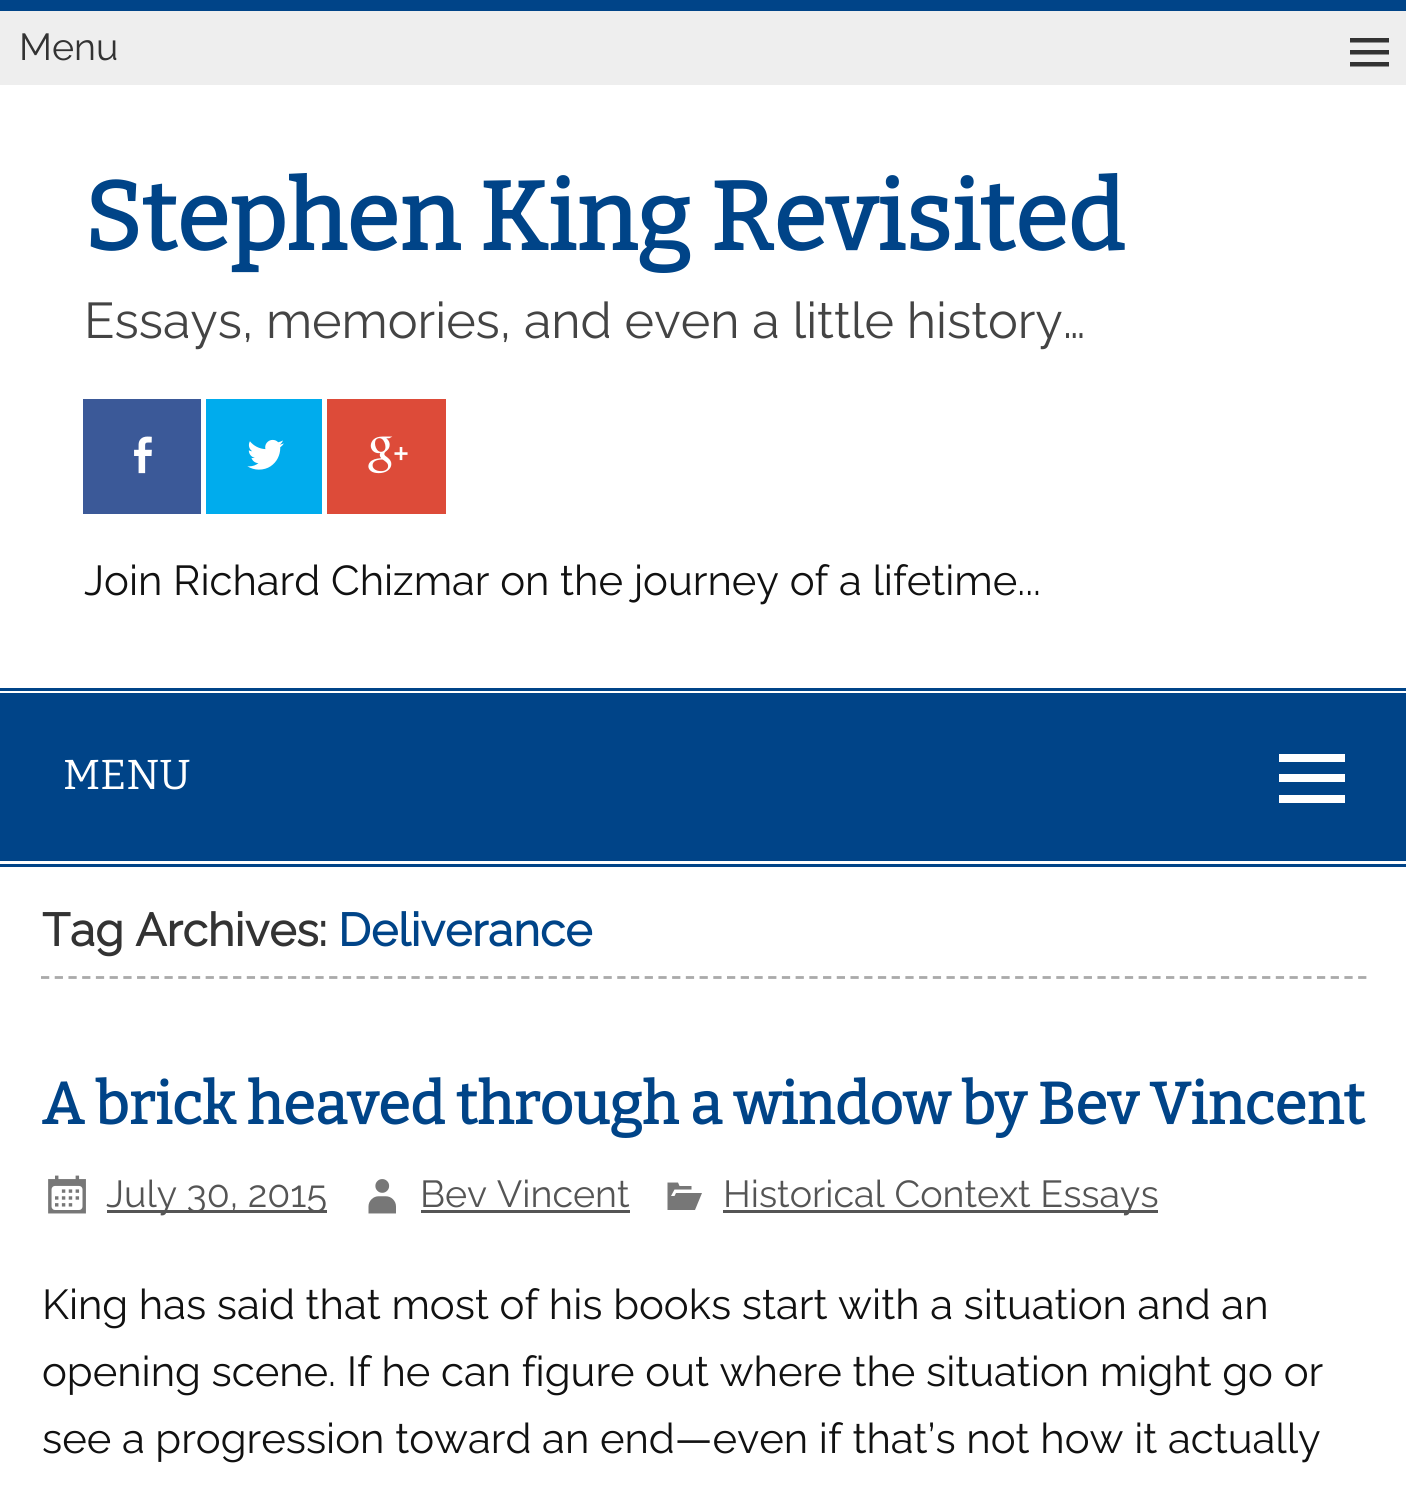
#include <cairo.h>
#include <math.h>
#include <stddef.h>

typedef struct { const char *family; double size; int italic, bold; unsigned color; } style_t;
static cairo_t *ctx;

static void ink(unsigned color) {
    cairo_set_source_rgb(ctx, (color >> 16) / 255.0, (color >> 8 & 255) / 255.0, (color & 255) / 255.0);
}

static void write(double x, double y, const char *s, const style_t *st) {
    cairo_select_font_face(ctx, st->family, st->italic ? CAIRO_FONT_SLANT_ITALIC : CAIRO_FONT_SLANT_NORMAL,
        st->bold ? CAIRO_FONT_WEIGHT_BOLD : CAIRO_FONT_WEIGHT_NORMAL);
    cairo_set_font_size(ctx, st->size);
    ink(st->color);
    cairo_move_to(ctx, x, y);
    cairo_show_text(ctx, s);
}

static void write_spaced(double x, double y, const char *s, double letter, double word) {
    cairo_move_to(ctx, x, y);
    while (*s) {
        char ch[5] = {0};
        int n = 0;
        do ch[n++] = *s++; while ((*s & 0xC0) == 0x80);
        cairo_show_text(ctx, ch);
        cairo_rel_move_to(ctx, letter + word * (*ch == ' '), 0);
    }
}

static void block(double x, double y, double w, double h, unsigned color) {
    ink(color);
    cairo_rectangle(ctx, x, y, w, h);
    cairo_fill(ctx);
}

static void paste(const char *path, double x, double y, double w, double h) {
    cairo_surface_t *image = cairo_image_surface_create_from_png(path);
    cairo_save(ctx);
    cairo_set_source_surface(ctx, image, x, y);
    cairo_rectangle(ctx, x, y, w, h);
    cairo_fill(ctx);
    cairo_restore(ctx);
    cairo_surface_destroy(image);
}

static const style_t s1 = {"Raleway Thin", 37.6, 0, 0, 0x333333};
static const style_t s2 = {"Bitter", 96.2, 0, 1, 0x004488};
static const style_t s3 = {"Raleway Thin", 50.2, 0, 0, 0x444444};
static const style_t s4 = {"Raleway Thin", 41.8, 0, 0, 0x111111};
static const style_t s5 = {"Bitter Thin", 41.8, 0, 0, 0xffffff};
static const style_t s6 = {"Raleway", 46, 0, 1, 0x333333};
static const style_t s7 = {"Raleway", 46, 0, 1, 0x004488};
static const style_t s8 = {"Raleway Thin", 37.6, 0, 0, 0x555555};

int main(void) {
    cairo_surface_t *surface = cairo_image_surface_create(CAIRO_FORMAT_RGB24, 1406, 1501);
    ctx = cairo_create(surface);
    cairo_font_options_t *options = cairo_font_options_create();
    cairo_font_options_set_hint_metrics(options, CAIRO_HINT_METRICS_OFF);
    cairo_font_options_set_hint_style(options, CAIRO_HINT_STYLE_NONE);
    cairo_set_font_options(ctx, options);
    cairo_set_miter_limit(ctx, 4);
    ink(0xffffff);
    cairo_paint(ctx);
    block(0, 0, 1406, 11, 0x004488);
    block(0, 11, 1406, 74, 0xeeeeee);
    write(19, 60, "Menu", &s1);
    cairo_new_path(ctx);
    cairo_move_to(ctx, 1350, 66.5);
    cairo_line_to(ctx, 1350, 62);
    cairo_line_to(ctx, 1389, 62);
    cairo_line_to(ctx, 1389, 66.5);
    cairo_close_path(ctx);
    cairo_move_to(ctx, 1350, 54.5);
    cairo_line_to(ctx, 1350, 50);
    cairo_line_to(ctx, 1389, 50);
    cairo_line_to(ctx, 1389, 54.5);
    cairo_close_path(ctx);
    cairo_move_to(ctx, 1350, 42.5);
    cairo_line_to(ctx, 1350, 38);
    cairo_line_to(ctx, 1389, 38);
    cairo_line_to(ctx, 1389, 42.5);
    cairo_close_path(ctx);
    cairo_fill(ctx);
    write(84, 250, "Stephen King Revisited", &s2);
    write(84, 338, "Essays, memories, and even a little history…", &s3);
    block(83, 399, 118, 115, 0x3b5998);
    paste("pic1.png", 134, 436, 18, 38);
    block(206, 399, 116, 115, 0x00aced);
    paste("pic2.png", 247, 439, 37, 31);
    block(327, 399, 119, 115, 0xdd4b39);
    paste("pic3.png", 368, 436, 40, 38);
    write(84, 595, "Join Richard Chizmar on the journey of a lifetime...", &s4);
    block(0, 688, 1406, 3, 0x004488);
    block(0, 864, 1406, 3, 0x004488);
    block(0, 693, 1406, 168, 0x004488);
    write(63, 789, "MENU", &s5);
    cairo_new_path(ctx);
    cairo_move_to(ctx, 1279, 803);
    cairo_line_to(ctx, 1279, 795);
    cairo_line_to(ctx, 1345, 795);
    cairo_line_to(ctx, 1345, 803);
    cairo_close_path(ctx);
    cairo_move_to(ctx, 1279, 782);
    cairo_line_to(ctx, 1279, 774);
    cairo_line_to(ctx, 1345, 774);
    cairo_line_to(ctx, 1345, 782);
    cairo_close_path(ctx);
    cairo_move_to(ctx, 1279, 762);
    cairo_line_to(ctx, 1279, 754);
    cairo_line_to(ctx, 1345, 754);
    cairo_line_to(ctx, 1345, 762);
    cairo_close_path(ctx);
    cairo_fill(ctx);
    cairo_new_path(ctx);
    cairo_move_to(ctx, 41, 977.5);
    cairo_line_to(ctx, 1367, 977.5);
    ink(0xaaaaaa);
    cairo_set_line_width(ctx, 2.8);
    cairo_set_dash(ctx, (double[]){8.25, 5.47}, 2, 0);
    cairo_stroke(ctx);
    write(42, 946, "Tag Archives:", &s6);
    write(338, 946, "Deliverance", &s7);
    cairo_select_font_face(ctx, "Bitter", CAIRO_FONT_SLANT_NORMAL, CAIRO_FONT_WEIGHT_BOLD);
    cairo_set_font_size(ctx, 58.5);
    write_spaced(42, 1124, "A brick heaved through a window by Bev Vincent", 0, -0.25);
    paste("pic4.png", 48, 1175, 38, 39);
    block(107, 1210, 220, 3, 0x555555);
    write(106, 1207, "July 30, 2015", &s8);
    paste("pic5.png", 368, 1179, 28, 35);
    write(420, 1207, "Bev Vincent", &s8);
    block(421, 1210, 209, 3, 0x555555);
    ink(0x777777);
    cairo_new_path(ctx);
    cairo_move_to(ctx, 667.5, 1210);
    cairo_line_to(ctx, 667.5, 1182.5);
    cairo_line_to(ctx, 678, 1182.5);
    cairo_line_to(ctx, 679.5, 1186);
    cairo_line_to(ctx, 691.5, 1186);
    cairo_line_to(ctx, 691.5, 1189.5);
    cairo_line_to(ctx, 674.5, 1189.5);
    cairo_line_to(ctx, 671, 1196);
    cairo_line_to(ctx, 674.5, 1196);
    cairo_line_to(ctx, 676, 1193);
    cairo_line_to(ctx, 702, 1193);
    cairo_line_to(ctx, 695, 1210);
    cairo_close_path(ctx);
    cairo_fill(ctx);
    block(723, 1210, 435, 3, 0x555555);
    write(723, 1207, "Historical Context Essays", &s8);
    write(42, 1319, "King has said that most of his books start with a situation and an", &s4);
    write(42, 1386, "opening scene. If he can figure out where the situation might go or", &s4);
    write(42, 1453, "see a progression toward an end—even if that’s not how it actually", &s4);
    cairo_surface_write_to_png(surface, "screenshot.png");
    cairo_font_options_destroy(options);
    cairo_destroy(ctx);
    cairo_surface_destroy(surface);
    return 0;
}
